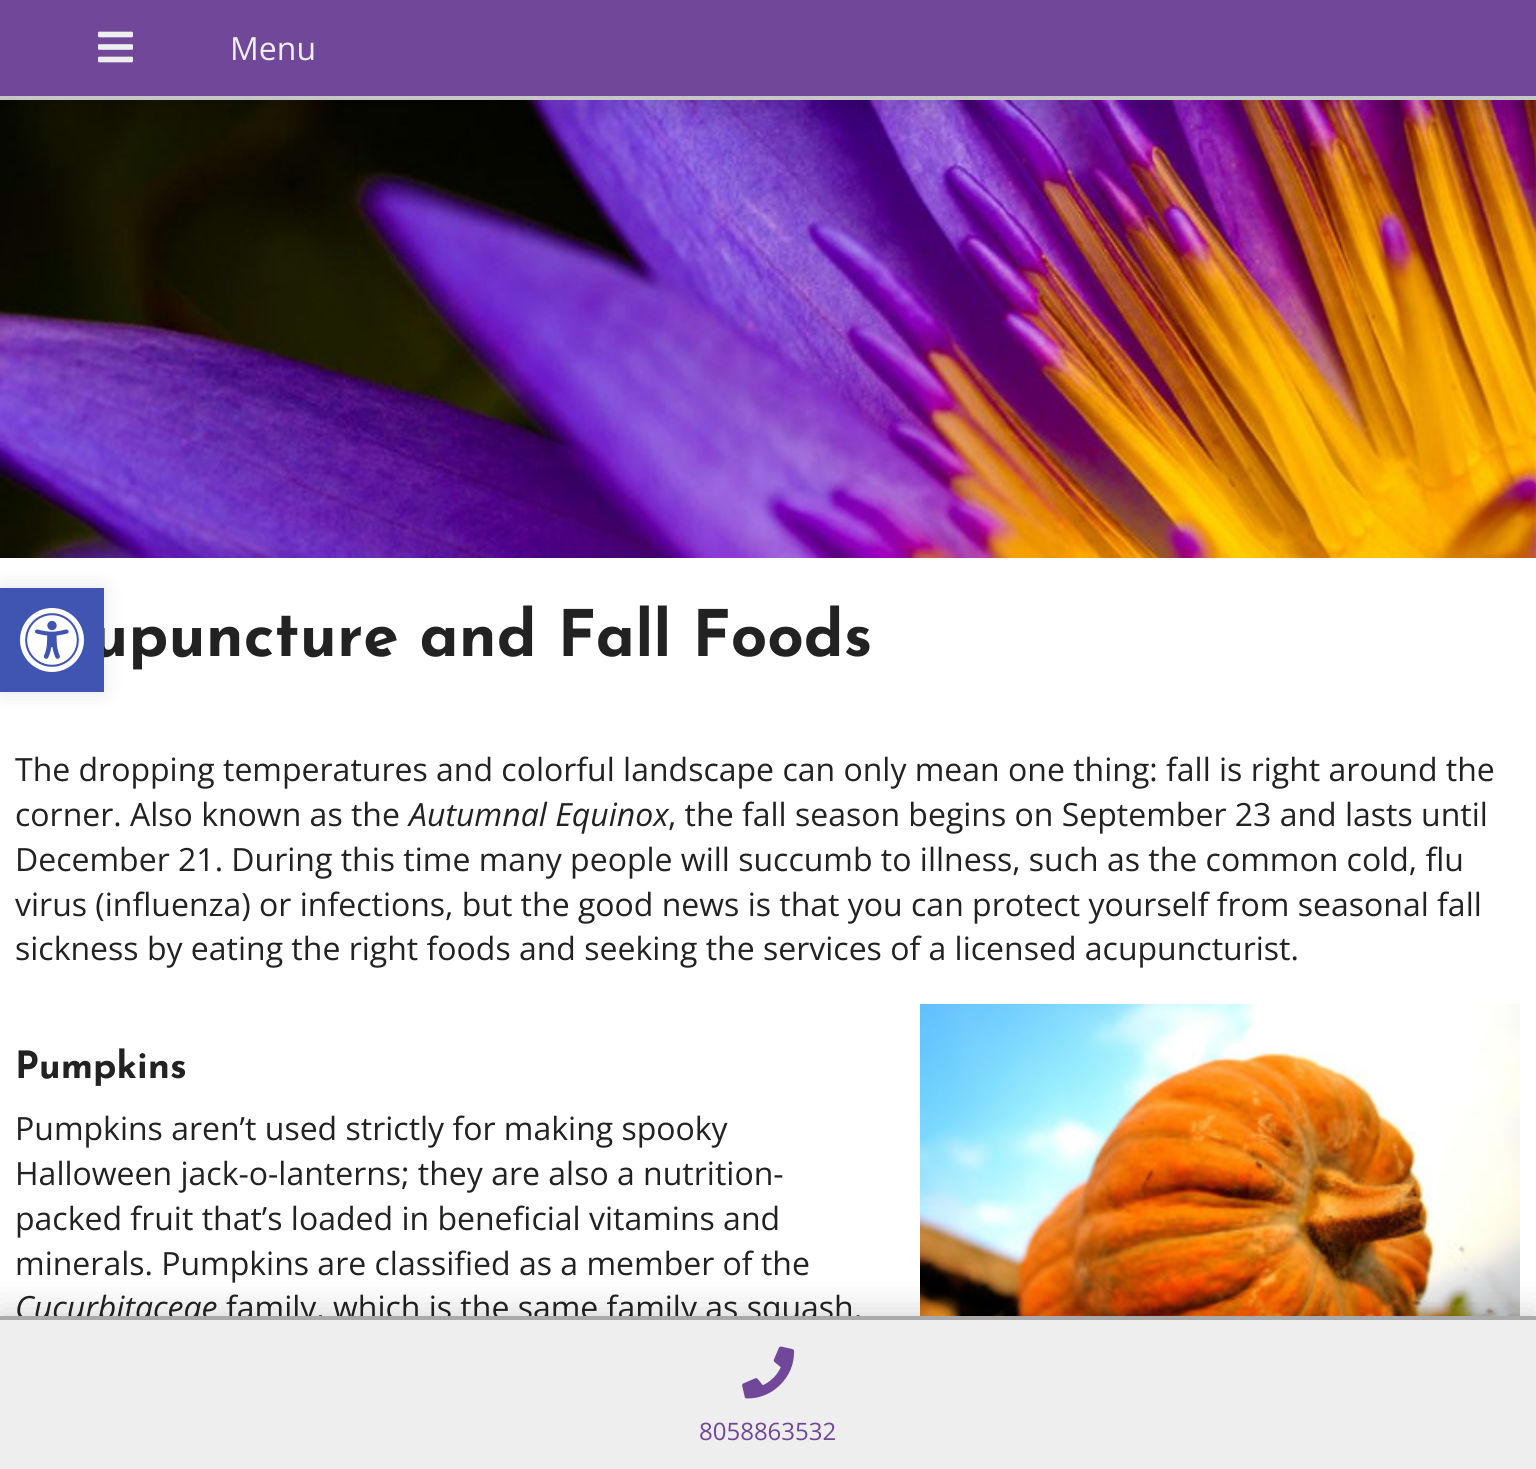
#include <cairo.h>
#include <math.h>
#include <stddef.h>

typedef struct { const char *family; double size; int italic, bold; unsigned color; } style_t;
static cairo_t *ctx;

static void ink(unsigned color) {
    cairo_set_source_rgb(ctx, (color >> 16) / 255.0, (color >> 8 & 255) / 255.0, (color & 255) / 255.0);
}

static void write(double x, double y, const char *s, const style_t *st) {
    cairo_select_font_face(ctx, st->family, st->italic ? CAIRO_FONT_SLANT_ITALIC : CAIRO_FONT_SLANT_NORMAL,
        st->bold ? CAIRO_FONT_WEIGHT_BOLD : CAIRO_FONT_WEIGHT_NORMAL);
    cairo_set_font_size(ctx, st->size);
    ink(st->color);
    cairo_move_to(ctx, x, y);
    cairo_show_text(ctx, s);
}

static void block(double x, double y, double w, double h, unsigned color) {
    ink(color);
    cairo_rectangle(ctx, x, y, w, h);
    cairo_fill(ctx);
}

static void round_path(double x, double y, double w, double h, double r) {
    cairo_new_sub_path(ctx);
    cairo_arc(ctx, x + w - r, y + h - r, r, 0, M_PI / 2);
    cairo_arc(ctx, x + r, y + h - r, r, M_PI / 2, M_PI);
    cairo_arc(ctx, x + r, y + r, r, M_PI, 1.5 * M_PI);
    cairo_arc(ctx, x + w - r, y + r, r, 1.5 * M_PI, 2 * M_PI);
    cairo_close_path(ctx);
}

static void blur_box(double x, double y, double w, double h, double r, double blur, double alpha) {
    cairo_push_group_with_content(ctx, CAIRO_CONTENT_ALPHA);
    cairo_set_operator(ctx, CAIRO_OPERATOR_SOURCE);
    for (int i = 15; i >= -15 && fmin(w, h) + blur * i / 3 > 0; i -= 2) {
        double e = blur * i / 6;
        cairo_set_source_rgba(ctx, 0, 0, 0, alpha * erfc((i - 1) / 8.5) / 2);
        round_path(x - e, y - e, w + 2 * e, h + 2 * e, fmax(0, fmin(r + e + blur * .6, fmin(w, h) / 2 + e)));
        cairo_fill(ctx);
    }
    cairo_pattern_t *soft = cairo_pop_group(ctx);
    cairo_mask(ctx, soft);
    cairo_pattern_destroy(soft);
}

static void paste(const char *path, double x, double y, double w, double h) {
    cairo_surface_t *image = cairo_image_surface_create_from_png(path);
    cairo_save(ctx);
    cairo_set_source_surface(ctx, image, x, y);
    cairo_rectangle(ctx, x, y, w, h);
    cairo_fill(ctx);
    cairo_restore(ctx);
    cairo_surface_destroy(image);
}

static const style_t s1 = {"Open Sans", 32, 0, 0, 0xeeeeee};
static const style_t s2 = {"Josefin Sans", 64, 0, 1, 0x222222};
static const style_t s3 = {"Open Sans", 32, 0, 0, 0x222222};
static const style_t s4 = {"Open Sans", 32, 1, 0, 0x222222};
static const style_t s5 = {"Josefin Sans", 37.5, 0, 1, 0x222222};
static const style_t s6 = {"Open Sans", 24, 0, 0, 0x714799};

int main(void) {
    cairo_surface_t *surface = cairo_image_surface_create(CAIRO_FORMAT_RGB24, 1536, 1469);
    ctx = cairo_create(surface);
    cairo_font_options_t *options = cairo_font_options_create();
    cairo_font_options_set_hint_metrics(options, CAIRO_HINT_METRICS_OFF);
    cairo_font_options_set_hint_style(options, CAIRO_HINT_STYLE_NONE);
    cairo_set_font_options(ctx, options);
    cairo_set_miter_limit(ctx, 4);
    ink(0xffffff);
    cairo_paint(ctx);
    paste("pic2.png", 0, 100, 1536, 458);
    ink(0x000000);
    blur_box(0, 6, 1536, 100, 0, 16, 0.15);
    block(0, 0, 1536, 96, 0x714799);
    block(0, 96, 1536, 4, 0xc6c6c6);
    paste("pic1.png", 98, 31, 35, 32);
    write(230, 60, "Menu", &s1);
    write(91, 656, "upuncture and Fall Foods", &s2);
    write(15, 781, "The dropping temperatures and colorful landscape can only mean one thing: fall is right around the", &s3);
    write(15, 826, "corner. Also known as the", &s3);
    write(409, 826, "Autumnal Equinox", &s4);
    write(668, 826, ", the fall season begins on September 23 and lasts until", &s3);
    write(15, 871, "December 21. During this time many people will succumb to illness, such as the common cold, flu", &s3);
    write(15, 916, "virus (influenza) or infections, but the good news is that you can protect yourself from seasonal fall", &s3);
    write(15, 960, "sickness by eating the right foods and seeking the services of a licensed acupuncturist.", &s3);
    write(15, 1078, "Pumpkins", &s5);
    paste("pic3.png", 920, 1004, 600, 312);
    write(15, 1140, "Pumpkins aren’t used strictly for making spooky", &s3);
    write(15, 1185, "Halloween jack-o-lanterns; they are also a nutrition-", &s3);
    write(15, 1230, "packed fruit that’s loaded in beneficial vitamins and", &s3);
    write(15, 1275, "minerals. Pumpkins are classified as a member of the", &s3);
    write(15, 1319, "Cucurbitaceae", &s4);
    write(226, 1319, "family, which is the same family as squash,", &s3);
    ink(0x000000);
    blur_box(0, 588, 104, 104, 0, 10, 0.1);
    block(0, 588, 104, 104, 0x4054b2);
    paste("pic4.png", 20, 608, 64, 64);
    ink(0x000000);
    blur_box(0, 1310, 1536, 154, 0, 16, 0.15);
    block(0, 1320, 1536, 149, 0xeeeeee);
    block(0, 1316, 1536, 4, 0xaaaaaa);
    paste("pic5.png", 742, 1346, 53, 53);
    write(699, 1440, "8058863532", &s6);
    cairo_surface_write_to_png(surface, "screenshot.png");
    cairo_font_options_destroy(options);
    cairo_destroy(ctx);
    cairo_surface_destroy(surface);
    return 0;
}
